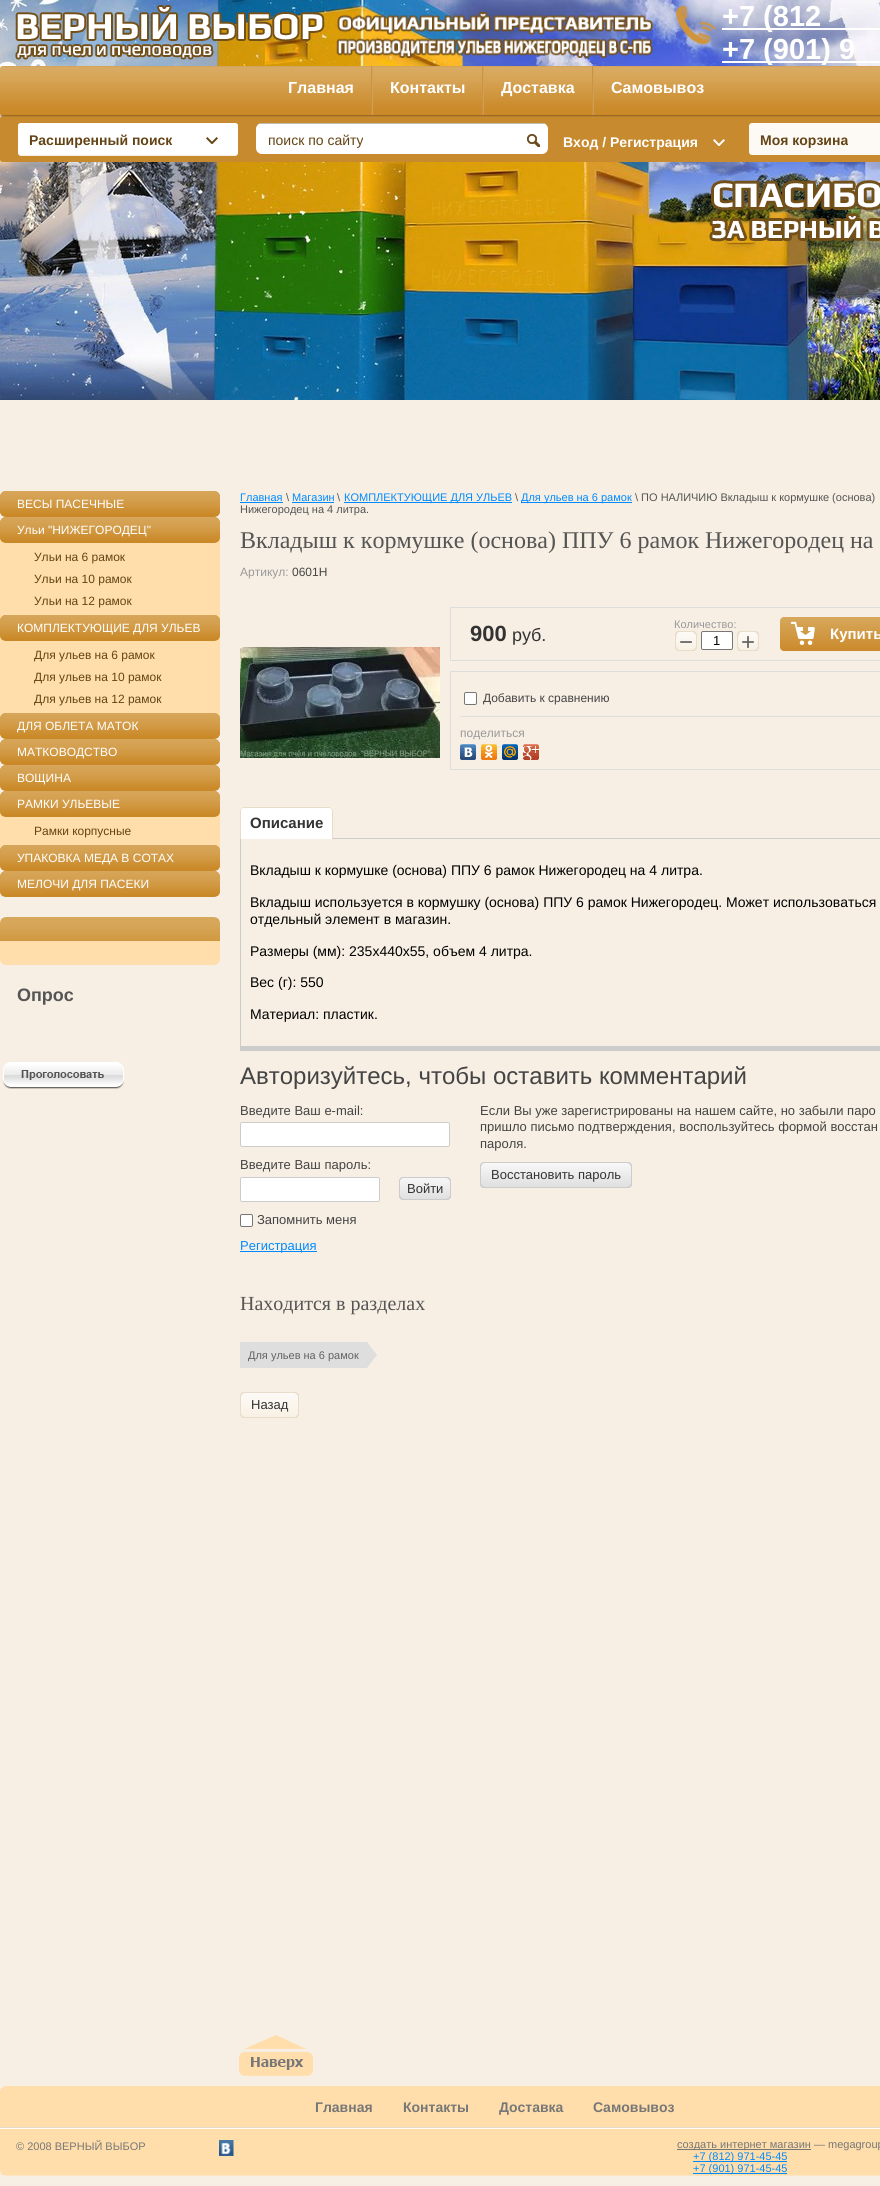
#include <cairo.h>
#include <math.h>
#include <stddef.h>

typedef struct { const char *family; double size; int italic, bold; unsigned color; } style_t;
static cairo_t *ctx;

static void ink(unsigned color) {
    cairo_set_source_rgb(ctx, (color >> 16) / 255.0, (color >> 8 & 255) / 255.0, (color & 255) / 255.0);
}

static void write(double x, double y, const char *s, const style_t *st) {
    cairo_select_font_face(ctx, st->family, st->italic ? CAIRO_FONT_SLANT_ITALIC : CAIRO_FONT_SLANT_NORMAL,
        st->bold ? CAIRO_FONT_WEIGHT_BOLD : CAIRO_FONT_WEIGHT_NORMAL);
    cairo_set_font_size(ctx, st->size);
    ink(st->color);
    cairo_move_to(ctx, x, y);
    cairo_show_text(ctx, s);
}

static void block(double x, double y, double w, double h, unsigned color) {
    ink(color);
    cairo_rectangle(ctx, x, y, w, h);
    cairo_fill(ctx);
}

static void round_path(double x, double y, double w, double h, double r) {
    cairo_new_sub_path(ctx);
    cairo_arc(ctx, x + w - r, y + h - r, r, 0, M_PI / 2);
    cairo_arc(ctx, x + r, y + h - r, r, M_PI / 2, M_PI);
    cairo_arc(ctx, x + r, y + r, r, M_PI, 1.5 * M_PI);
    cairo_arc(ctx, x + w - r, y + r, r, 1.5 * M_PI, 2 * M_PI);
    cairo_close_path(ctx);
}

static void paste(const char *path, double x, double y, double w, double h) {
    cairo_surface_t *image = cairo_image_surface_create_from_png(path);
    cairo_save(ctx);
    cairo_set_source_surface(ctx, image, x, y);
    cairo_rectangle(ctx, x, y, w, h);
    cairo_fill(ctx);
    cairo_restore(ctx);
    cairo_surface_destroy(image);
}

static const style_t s1 = {"Liberation Sans", 29, 0, 1, 0xffffff};
static const style_t s2 = {"Liberation Sans", 16, 0, 1, 0xffffff};
static const style_t s3 = {"Liberation Sans", 14, 0, 1, 0x644415};
static const style_t s4 = {"Liberation Sans", 14, 0, 0, 0x644415};
static const style_t s5 = {"Liberation Sans", 14, 0, 1, 0xffffff};
static const style_t s6 = {"Liberation Sans", 12, 0, 0, 0xffffff};
static const style_t s7 = {"Liberation Sans", 12, 0, 0, 0x644415};
static const style_t s8 = {"Liberation Sans", 18, 0, 1, 0x555555};
static const style_t s9 = {"Liberation Sans", 11, 0, 0, 0x008aff};
static const style_t s10 = {"Liberation Sans", 11, 0, 0, 0x555555};
static const style_t s11 = {"Liberation Serif", 24, 0, 0, 0x555555};
static const style_t s12 = {"Liberation Sans", 12, 0, 0, 0x999999};
static const style_t s13 = {"Liberation Sans", 12, 0, 0, 0x444444};
static const style_t s14 = {"Liberation Sans", 22, 0, 1, 0x333333};
static const style_t s15 = {"Liberation Sans", 18, 0, 0, 0x333333};
static const style_t s16 = {"Liberation Sans", 11, 0, 0, 0x999999};
static const style_t s17 = {"Liberation Sans", 24, 0, 0, 0x626262};
static const style_t s18 = {"Liberation Sans", 13, 0, 0, 0x000000};
static const style_t s19 = {"Liberation Sans", 15, 0, 1, 0xffffff};
static const style_t s20 = {"Liberation Sans", 15, 0, 1, 0x333333};
static const style_t s21 = {"Liberation Sans", 14, 0, 0, 0x000000};
static const style_t s22 = {"Liberation Sans", 24, 0, 0, 0x444444};
static const style_t s23 = {"Liberation Sans", 13, 0, 0, 0x444444};
static const style_t s24 = {"Liberation Sans", 13, 0, 0, 0x333333};
static const style_t s25 = {"Liberation Sans", 13, 0, 0, 0x008aff};
static const style_t s26 = {"Liberation Serif", 20, 0, 0, 0x555555};
static const style_t s27 = {"Liberation Sans", 11, 0, 0, 0x626262};
static const style_t s28 = {"Liberation Sans", 14, 0, 1, 0x777777};
static const style_t s29 = {"Liberation Sans", 11, 0, 0, 0x777777};

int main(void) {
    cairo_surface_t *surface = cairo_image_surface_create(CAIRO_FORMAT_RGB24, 880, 2186);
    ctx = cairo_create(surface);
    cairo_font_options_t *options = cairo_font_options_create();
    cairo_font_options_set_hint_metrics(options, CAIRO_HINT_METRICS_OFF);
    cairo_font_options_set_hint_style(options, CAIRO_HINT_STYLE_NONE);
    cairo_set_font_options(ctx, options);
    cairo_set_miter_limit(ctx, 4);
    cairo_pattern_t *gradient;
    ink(0xf7efe4);
    cairo_paint(ctx);
    paste("pic1.png", 0, 0, 880, 400);
    paste("pic2.png", 15, 5, 310, 55);
    paste("pic3.png", 336, 12, 317, 46);
    paste("pic4.png", 676, 5, 40, 40);
    block(722, 28, 158, 2, 0xffffff);
    write(722, 26, "+7 (812", &s1);
    block(722, 61, 158, 2, 0xffffff);
    write(722, 59, "+7 (901) 9", &s1);
    paste("pic5.png", 0, 66, 880, 50);
    write(288, 93, "Главная", &s2);
    paste("pic6.png", 371, 66, 2, 49);
    write(390, 93, "Контакты", &s2);
    paste("pic6.png", 482, 66, 2, 49);
    write(501, 93, "Доставка", &s2);
    paste("pic6.png", 592, 66, 2, 49);
    write(611, 93, "Самовывоз", &s2);
    paste("pic7.png", 0, 116, 880, 46);
    ink(0xf8efe1);
    round_path(18, 123, 220, 33, 3);
    cairo_fill(ctx);
    ink(0xffffff);
    round_path(18, 123, 220, 32, 3);
    cairo_fill(ctx);
    write(29, 145, "Расширенный поиск", &s3);
    paste("pic8.png", 206, 137, 12, 7);
    ink(0xffffff);
    round_path(256, 123, 292, 31, 6);
    cairo_fill(ctx);
    block(259, 123, 286, 1, 0xc2bbb0);
    write(268, 145, "поиск по сайту", &s4);
    paste("pic9.png", 527, 134, 13, 13);
    write(563, 147, "Вход / Регистрация", &s5);
    paste("pic10.png", 713, 139, 12, 7);
    ink(0xfdfaf6);
    round_path(749, 123, 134, 32, 3);
    cairo_fill(ctx);
    write(760, 145, "Моя корзина", &s3);
    paste("pic11.png", 709, 180, 171, 62);
    ink(0xca8928);
    round_path(0, 491, 220, 26, 6);
    cairo_fill(ctx);
    paste("pic12.png", 0, 491, 220, 25);
    write(17, 508, "ВЕСЫ ПАСЕЧНЫЕ", &s6);
    block(0, 538, 220, 82, 0xffdeab);
    ink(0xca8928);
    round_path(0, 517, 220, 26, 6);
    cairo_fill(ctx);
    paste("pic13.png", 0, 517, 220, 25);
    write(17, 534, "Ульи \"НИЖЕГОРОДЕЦ\"", &s6);
    write(34, 561, "Ульи на 6 рамок", &s7);
    write(34, 583, "Ульи на 10 рамок", &s7);
    write(34, 605, "Ульи на 12 рамок", &s7);
    block(0, 636, 220, 82, 0xffdeab);
    ink(0xca8928);
    round_path(0, 615, 220, 26, 6);
    cairo_fill(ctx);
    paste("pic14.png", 0, 615, 220, 25);
    write(17, 632, "КОМПЛЕКТУЮЩИЕ ДЛЯ УЛЬЕВ", &s6);
    write(34, 659, "Для ульев на 6 рамок", &s7);
    write(34, 681, "Для ульев на 10 рамок", &s7);
    write(34, 703, "Для ульев на 12 рамок", &s7);
    ink(0xca8928);
    round_path(0, 713, 220, 26, 6);
    cairo_fill(ctx);
    paste("pic15.png", 0, 713, 220, 25);
    write(17, 730, "ДЛЯ ОБЛЕТА МАТОК", &s6);
    ink(0xca8928);
    round_path(0, 739, 220, 26, 6);
    cairo_fill(ctx);
    paste("pic16.png", 0, 739, 220, 25);
    write(17, 756, "МАТКОВОДСТВО", &s6);
    ink(0xca8928);
    round_path(0, 765, 220, 26, 6);
    cairo_fill(ctx);
    paste("pic12.png", 0, 765, 220, 25);
    write(17, 782, "ВОЩИНА", &s6);
    block(0, 812, 220, 38, 0xffdeab);
    ink(0xca8928);
    round_path(0, 791, 220, 26, 6);
    cairo_fill(ctx);
    paste("pic13.png", 0, 791, 220, 25);
    write(17, 808, "РАМКИ УЛЬЕВЫЕ", &s6);
    write(34, 835, "Рамки корпусные", &s7);
    ink(0xca8928);
    round_path(0, 845, 220, 26, 6);
    cairo_fill(ctx);
    paste("pic15.png", 0, 845, 220, 25);
    write(17, 862, "УПАКОВКА МЕДА В СОТАХ", &s6);
    ink(0xca8928);
    round_path(0, 871, 220, 26, 6);
    cairo_fill(ctx);
    paste("pic12.png", 0, 871, 220, 25);
    write(17, 888, "МЕЛОЧИ ДЛЯ ПАСЕКИ", &s6);
    paste("pic17.png", 0, 917, 220, 24);
    ink(0xffdeab);
    cairo_new_path(ctx);
    cairo_move_to(ctx, 0, 941);
    cairo_line_to(ctx, 220, 941);
    cairo_line_to(ctx, 220, 959);
    cairo_curve_to(ctx, 220, 962.5, 217.5, 965, 214, 965);
    cairo_line_to(ctx, 6, 965);
    cairo_curve_to(ctx, 2.5, 965, 0, 962.5, 0, 959);
    cairo_close_path(ctx);
    cairo_fill(ctx);
    write(17, 1001, "Опрос", &s8);
    paste("pic18.png", 3, 1062, 121, 27);
    write(240, 501, "Главная", &s9);
    block(240, 502, 43, 1, 0x008aff);
    write(286, 501, "\\", &s10);
    write(292, 501, "Магазин", &s9);
    block(292, 502, 42, 1, 0x008aff);
    write(337, 501, "\\", &s10);
    block(344, 502, 168, 1, 0x008aff);
    write(344, 501, "КОМПЛЕКТУЮЩИЕ ДЛЯ УЛЬЕВ", &s9);
    write(515, 501, "\\", &s10);
    block(521, 502, 111, 1, 0x008aff);
    write(521, 501, "Для ульев на 6 рамок", &s9);
    write(635, 501, "\\ ПО НАЛИЧИЮ Вкладыш к кормушке (основа)", &s10);
    write(240, 513, "Нижегородец на 4 литра.", &s10);
    write(240, 548, "Вкладыш к кормушке (основа) ППУ 6 рамок Нижегородец на", &s11);
    write(240, 576, "Артикул:", &s12);
    write(292, 576, "0601Н", &s13);
    paste("pic19.png", 240, 647, 200, 111);
    cairo_rectangle(ctx, 450.5, 607.5, 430, 53);
    ink(0xdedede);
    cairo_set_line_width(ctx, 1);
    cairo_stroke(ctx);
    write(470, 641, "900", &s14);
    write(512, 641, "руб.", &s15);
    write(674, 628, "Количество:", &s16);
    gradient = cairo_pattern_create_linear(686, 631, 686, 651);
    cairo_pattern_add_color_stop_rgba(gradient, 0, 0.992, 0.984, 0.973, 1);
    cairo_pattern_add_color_stop_rgba(gradient, 1, 0.973, 0.941, 0.89, 1);
    cairo_set_source(ctx, gradient);
    cairo_pattern_destroy(gradient);
    round_path(675, 631, 22, 20, 4);
    cairo_fill(ctx);
    ink(0xe9dcc9);
    cairo_new_path(ctx);
    cairo_move_to(ctx, 677, 631.5);
    cairo_curve_to(ctx, 676, 632.5, 675, 633.5, 675, 635);
    cairo_line_to(ctx, 675, 647);
    cairo_curve_to(ctx, 675, 649, 677, 651, 679, 651);
    cairo_line_to(ctx, 693, 651);
    cairo_curve_to(ctx, 694.5, 651, 696, 650, 696.5, 649);
    cairo_curve_to(ctx, 694, 651, 688.5, 650, 686, 650);
    cairo_line_to(ctx, 678.5, 650);
    cairo_line_to(ctx, 677.5, 649);
    cairo_curve_to(ctx, 676.5, 648, 676, 647, 676, 645.5);
    cairo_line_to(ctx, 676, 635);
    cairo_curve_to(ctx, 676, 634, 676.5, 632.5, 677, 631.5);
    cairo_close_path(ctx);
    cairo_fill(ctx);
    cairo_new_path(ctx);
    cairo_move_to(ctx, 678, 632);
    cairo_curve_to(ctx, 681.5, 632, 692.5, 631, 694.5, 633);
    cairo_line_to(ctx, 696, 635.5);
    cairo_curve_to(ctx, 696, 637, 696, 645.5, 696, 648);
    cairo_curve_to(ctx, 696, 649, 695.5, 650, 695, 650.5);
    cairo_curve_to(ctx, 696, 650, 697, 648.5, 697, 647);
    cairo_line_to(ctx, 697, 635);
    cairo_curve_to(ctx, 697, 633, 695, 631, 693, 631);
    cairo_line_to(ctx, 679, 631);
    cairo_curve_to(ctx, 677.5, 631, 676.5, 631.5, 675.5, 632.5);
    cairo_curve_to(ctx, 676.5, 632.5, 677, 632, 678, 632);
    cairo_close_path(ctx);
    cairo_fill(ctx);
    cairo_new_path(ctx);
    cairo_move_to(ctx, 675.5, 649.5);
    cairo_curve_to(ctx, 676.5, 650.5, 677.5, 651, 679, 651);
    cairo_line_to(ctx, 693, 651);
    cairo_curve_to(ctx, 695, 651, 697, 649, 697, 647);
    cairo_line_to(ctx, 697, 635);
    cairo_curve_to(ctx, 697, 633.5, 696, 632, 695, 631.5);
    cairo_curve_to(ctx, 695.5, 632, 696, 633, 696, 634);
    cairo_curve_to(ctx, 696, 636.5, 696, 645, 696, 646.5);
    cairo_line_to(ctx, 694.5, 649);
    cairo_curve_to(ctx, 692.5, 651, 687, 650, 684, 650);
    cairo_curve_to(ctx, 682, 650, 677.5, 650.5, 675.5, 649.5);
    cairo_close_path(ctx);
    cairo_fill(ctx);
    cairo_new_path(ctx);
    cairo_move_to(ctx, 680, 632);
    cairo_curve_to(ctx, 683, 632, 694, 631, 696.5, 633);
    cairo_curve_to(ctx, 696, 632, 694.5, 631, 693, 631);
    cairo_line_to(ctx, 679, 631);
    cairo_curve_to(ctx, 677, 631, 675, 633, 675, 635);
    cairo_line_to(ctx, 675, 647);
    cairo_curve_to(ctx, 675, 648.5, 676, 649.5, 677, 650.5);
    cairo_curve_to(ctx, 675.5, 648.5, 675.5, 636, 677, 634);
    cairo_curve_to(ctx, 677.5, 632.5, 678.5, 632, 680, 632);
    cairo_close_path(ctx);
    cairo_fill(ctx);
    write(679, 650, "−", &s17);
    ink(0xffffff);
    round_path(701.5, 631.5, 31, 18, 1.5);
    cairo_fill_preserve(ctx);
    ink(0x767676);
    cairo_stroke(ctx);
    write(713, 645, "1", &s18);
    gradient = cairo_pattern_create_linear(748, 631, 748, 651);
    cairo_pattern_add_color_stop_rgba(gradient, 0, 0.992, 0.984, 0.973, 1);
    cairo_pattern_add_color_stop_rgba(gradient, 1, 0.973, 0.941, 0.89, 1);
    cairo_set_source(ctx, gradient);
    cairo_pattern_destroy(gradient);
    round_path(737, 631, 22, 20, 4);
    cairo_fill(ctx);
    ink(0xe9dcc9);
    cairo_new_path(ctx);
    cairo_move_to(ctx, 739, 631.5);
    cairo_curve_to(ctx, 738, 632.5, 737, 633.5, 737, 635);
    cairo_line_to(ctx, 737, 647);
    cairo_curve_to(ctx, 737, 649, 739, 651, 741, 651);
    cairo_line_to(ctx, 755, 651);
    cairo_curve_to(ctx, 756.5, 651, 758, 650, 758.5, 649);
    cairo_curve_to(ctx, 756, 651, 750.5, 650, 748, 650);
    cairo_line_to(ctx, 740.5, 650);
    cairo_line_to(ctx, 739.5, 649);
    cairo_curve_to(ctx, 738.5, 648, 738, 647, 738, 645.5);
    cairo_line_to(ctx, 738, 635);
    cairo_curve_to(ctx, 738, 634, 738.5, 632.5, 739, 631.5);
    cairo_close_path(ctx);
    cairo_fill(ctx);
    cairo_new_path(ctx);
    cairo_move_to(ctx, 740, 632);
    cairo_curve_to(ctx, 743.5, 632, 754.5, 631, 756.5, 633);
    cairo_line_to(ctx, 758, 635.5);
    cairo_curve_to(ctx, 758, 637, 758, 645.5, 758, 648);
    cairo_curve_to(ctx, 758, 649, 757.5, 650, 757, 650.5);
    cairo_curve_to(ctx, 758, 650, 759, 648.5, 759, 647);
    cairo_line_to(ctx, 759, 635);
    cairo_curve_to(ctx, 759, 633, 757, 631, 755, 631);
    cairo_line_to(ctx, 741, 631);
    cairo_curve_to(ctx, 739.5, 631, 738.5, 631.5, 737.5, 632.5);
    cairo_curve_to(ctx, 738.5, 632.5, 739, 632, 740, 632);
    cairo_close_path(ctx);
    cairo_fill(ctx);
    cairo_new_path(ctx);
    cairo_move_to(ctx, 737.5, 649.5);
    cairo_curve_to(ctx, 738.5, 650.5, 739.5, 651, 741, 651);
    cairo_line_to(ctx, 755, 651);
    cairo_curve_to(ctx, 757, 651, 759, 649, 759, 647);
    cairo_line_to(ctx, 759, 635);
    cairo_curve_to(ctx, 759, 633.5, 758, 632, 757, 631.5);
    cairo_curve_to(ctx, 757.5, 632, 758, 633, 758, 634);
    cairo_curve_to(ctx, 758, 636.5, 758, 645, 758, 646.5);
    cairo_line_to(ctx, 756.5, 649);
    cairo_curve_to(ctx, 754.5, 651, 749, 650, 746, 650);
    cairo_curve_to(ctx, 744, 650, 739.5, 650.5, 737.5, 649.5);
    cairo_close_path(ctx);
    cairo_fill(ctx);
    cairo_new_path(ctx);
    cairo_move_to(ctx, 742, 632);
    cairo_curve_to(ctx, 745, 632, 756, 631, 758.5, 633);
    cairo_curve_to(ctx, 758, 632, 756.5, 631, 755, 631);
    cairo_line_to(ctx, 741, 631);
    cairo_curve_to(ctx, 739, 631, 737, 633, 737, 635);
    cairo_line_to(ctx, 737, 647);
    cairo_curve_to(ctx, 737, 648.5, 738, 649.5, 739, 650.5);
    cairo_curve_to(ctx, 737.5, 648.5, 737.5, 636, 739, 634);
    cairo_curve_to(ctx, 739.5, 632.5, 740.5, 632, 742, 632);
    cairo_close_path(ctx);
    cairo_fill(ctx);
    write(741, 650, "+", &s17);
    gradient = cairo_pattern_create_linear(855, 617, 855, 651);
    cairo_pattern_add_color_stop_rgba(gradient, 0, 0.843, 0.659, 0.361, 1);
    cairo_pattern_add_color_stop_rgba(gradient, 1, 0.796, 0.541, 0.173, 1);
    cairo_set_source(ctx, gradient);
    cairo_pattern_destroy(gradient);
    round_path(780, 617, 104, 34, 4);
    cairo_fill(ctx);
    paste("pic20.png", 790, 621, 25, 24);
    write(830, 639, "Купить", &s19);
    cairo_rectangle(ctx, 450.5, 671.5, 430, 98);
    ink(0xdedede);
    cairo_stroke(ctx);
    block(460, 716, 420, 1, 0xdedede);
    ink(0xffffff);
    round_path(464.5, 692.5, 12, 12, 1.5);
    cairo_fill_preserve(ctx);
    ink(0x767676);
    cairo_stroke(ctx);
    write(483, 702, "Добавить к сравнению", &s13);
    write(460, 737, "поделиться", &s12);
    paste("pic21.png", 460, 744, 16, 16);
    paste("pic22.png", 481, 744, 16, 16);
    paste("pic23.png", 502, 744, 16, 16);
    paste("pic24.png", 523, 744, 16, 16);
    block(240, 1046, 640, 5, 0xcccccc);
    block(240, 838, 1, 213, 0xcccccc);
    ink(0xffffff);
    cairo_new_path(ctx);
    cairo_move_to(ctx, 244, 807);
    cairo_line_to(ctx, 329, 807);
    cairo_curve_to(ctx, 331, 807, 333, 809, 333, 811);
    cairo_line_to(ctx, 333, 839);
    cairo_line_to(ctx, 240, 839);
    cairo_line_to(ctx, 240, 811);
    cairo_curve_to(ctx, 240, 809, 242, 807, 244, 807);
    cairo_close_path(ctx);
    cairo_fill(ctx);
    ink(0xe9dcc9);
    cairo_set_fill_rule(ctx, CAIRO_FILL_RULE_EVEN_ODD);
    cairo_new_path(ctx);
    cairo_move_to(ctx, 244, 807);
    cairo_line_to(ctx, 329, 807);
    cairo_curve_to(ctx, 331, 807, 333, 809, 333, 811);
    cairo_line_to(ctx, 333, 839);
    cairo_line_to(ctx, 240, 839);
    cairo_line_to(ctx, 240, 811);
    cairo_curve_to(ctx, 240, 809, 242, 807, 244, 807);
    cairo_close_path(ctx);
    cairo_move_to(ctx, 244, 808);
    cairo_line_to(ctx, 329, 808);
    cairo_curve_to(ctx, 331, 808, 332, 809, 332, 811);
    cairo_line_to(ctx, 332, 839);
    cairo_line_to(ctx, 241, 839);
    cairo_line_to(ctx, 241, 811);
    cairo_curve_to(ctx, 241, 809, 242, 808, 244, 808);
    cairo_close_path(ctx);
    cairo_fill(ctx);
    write(250, 828, "Описание", &s20);
    block(333, 838, 547, 1, 0xcccccc);
    write(250, 875, "Вкладыш к кормушке (основа) ППУ 6 рамок Нижегородец на 4 литра.", &s21);
    write(250, 907, "Вкладыш используется в кормушку (основа) ППУ 6 рамок Нижегородец. Может использоваться", &s21);
    write(250, 924, "отдельный элемент в магазин.", &s21);
    write(250, 956, "Размеры (мм): 235х440х55, объем 4 литра.", &s21);
    write(250, 987, "Вес (г): 550", &s21);
    write(250, 1019, "Материал: пластик.", &s21);
    write(240, 1084, "Авторизуйтесь, чтобы оставить комментарий", &s22);
    write(240, 1115, "Введите Ваш e-mail:", &s23);
    ink(0xffffff);
    round_path(240.5, 1122.5, 209, 24, 1.5);
    cairo_fill_preserve(ctx);
    ink(0xcccccc);
    cairo_stroke(ctx);
    write(240, 1169, "Введите Ваш пароль:", &s23);
    ink(0xffffff);
    round_path(240.5, 1177.5, 139, 24, 1.5);
    cairo_fill_preserve(ctx);
    ink(0xcccccc);
    cairo_stroke(ctx);
    gradient = cairo_pattern_create_linear(425, 1177, 425, 1200);
    cairo_pattern_add_color_stop_rgba(gradient, 0, 0.973, 0.973, 0.973, 1);
    cairo_pattern_add_color_stop_rgba(gradient, 1, 0.875, 0.875, 0.875, 1);
    cairo_set_source(ctx, gradient);
    cairo_pattern_destroy(gradient);
    round_path(399, 1177, 52, 23, 4);
    cairo_fill(ctx);
    ink(0xcccccc);
    cairo_set_fill_rule(ctx, CAIRO_FILL_RULE_WINDING);
    cairo_new_path(ctx);
    cairo_move_to(ctx, 401, 1178);
    cairo_curve_to(ctx, 400, 1178, 399, 1180, 399, 1181);
    cairo_line_to(ctx, 399, 1196);
    cairo_curve_to(ctx, 399, 1198, 401, 1200, 403, 1200);
    cairo_line_to(ctx, 447, 1200);
    cairo_curve_to(ctx, 448, 1200, 450, 1199, 450, 1198);
    cairo_line_to(ctx, 448, 1199);
    cairo_line_to(ctx, 404, 1199);
    cairo_curve_to(ctx, 402, 1199, 400, 1197, 400, 1195);
    cairo_line_to(ctx, 400, 1180);
    cairo_close_path(ctx);
    cairo_fill(ctx);
    cairo_new_path(ctx);
    cairo_move_to(ctx, 402, 1178);
    cairo_line_to(ctx, 446, 1178);
    cairo_curve_to(ctx, 448, 1178, 450, 1180, 450, 1182);
    cairo_line_to(ctx, 450, 1197);
    cairo_line_to(ctx, 449, 1199);
    cairo_curve_to(ctx, 450, 1199, 451, 1197, 451, 1196);
    cairo_line_to(ctx, 451, 1181);
    cairo_curve_to(ctx, 451, 1179, 449, 1177, 447, 1177);
    cairo_line_to(ctx, 403, 1177);
    cairo_curve_to(ctx, 402, 1177, 400, 1178, 400, 1179);
    cairo_close_path(ctx);
    cairo_fill(ctx);
    cairo_new_path(ctx);
    cairo_move_to(ctx, 400, 1198);
    cairo_curve_to(ctx, 400, 1199, 402, 1200, 403, 1200);
    cairo_line_to(ctx, 447, 1200);
    cairo_curve_to(ctx, 449, 1200, 451, 1198, 451, 1196);
    cairo_line_to(ctx, 451, 1181);
    cairo_curve_to(ctx, 451, 1180, 450, 1178, 449, 1178);
    cairo_line_to(ctx, 450, 1180);
    cairo_line_to(ctx, 450, 1195);
    cairo_curve_to(ctx, 450, 1197, 448, 1199, 446, 1199);
    cairo_line_to(ctx, 402, 1199);
    cairo_close_path(ctx);
    cairo_fill(ctx);
    cairo_new_path(ctx);
    cairo_move_to(ctx, 404, 1178);
    cairo_line_to(ctx, 448, 1178);
    cairo_line_to(ctx, 450, 1179);
    cairo_curve_to(ctx, 450, 1178, 448, 1177, 447, 1177);
    cairo_line_to(ctx, 403, 1177);
    cairo_curve_to(ctx, 401, 1177, 399, 1179, 399, 1181);
    cairo_line_to(ctx, 399, 1196);
    cairo_curve_to(ctx, 399, 1197, 400, 1199, 401, 1199);
    cairo_curve_to(ctx, 399, 1197, 400, 1192, 400, 1190);
    cairo_curve_to(ctx, 400, 1186, 398, 1178, 404, 1178);
    cairo_close_path(ctx);
    cairo_fill(ctx);
    write(407, 1193, "Войти", &s24);
    ink(0xffffff);
    round_path(240.5, 1214.5, 12, 12, 1.5);
    cairo_fill_preserve(ctx);
    ink(0x767676);
    cairo_stroke(ctx);
    write(257, 1224, "Запомнить меня", &s23);
    block(240, 1251, 77, 1, 0x008aff);
    write(240, 1250, "Регистрация", &s25);
    write(480, 1115, "Если Вы уже зарегистрированы на нашем сайте, но забыли паро", &s23);
    write(480, 1131, "пришло письмо подтверждения, воспользуйтесь формой восстан", &s23);
    write(480, 1148, "пароля.", &s23);
    gradient = cairo_pattern_create_linear(556, 1162, 556, 1188);
    cairo_pattern_add_color_stop_rgba(gradient, 0, 0.973, 0.973, 0.973, 1);
    cairo_pattern_add_color_stop_rgba(gradient, 1, 0.875, 0.875, 0.875, 1);
    cairo_set_source(ctx, gradient);
    cairo_pattern_destroy(gradient);
    round_path(480, 1162, 152, 26, 4);
    cairo_fill(ctx);
    ink(0xcccccc);
    cairo_new_path(ctx);
    cairo_move_to(ctx, 482, 1163);
    cairo_curve_to(ctx, 481, 1163, 480, 1165, 480, 1166);
    cairo_line_to(ctx, 480, 1184);
    cairo_curve_to(ctx, 480, 1186, 482, 1188, 484, 1188);
    cairo_line_to(ctx, 628, 1188);
    cairo_curve_to(ctx, 629, 1188, 631, 1187, 631, 1186);
    cairo_line_to(ctx, 629, 1187);
    cairo_line_to(ctx, 485, 1187);
    cairo_curve_to(ctx, 483, 1187, 481, 1185, 481, 1183);
    cairo_line_to(ctx, 481, 1165);
    cairo_close_path(ctx);
    cairo_fill(ctx);
    cairo_new_path(ctx);
    cairo_move_to(ctx, 483, 1163);
    cairo_line_to(ctx, 627, 1163);
    cairo_curve_to(ctx, 629, 1163, 631, 1165, 631, 1167);
    cairo_line_to(ctx, 631, 1185);
    cairo_line_to(ctx, 630, 1187);
    cairo_curve_to(ctx, 631, 1187, 632, 1185, 632, 1184);
    cairo_line_to(ctx, 632, 1166);
    cairo_curve_to(ctx, 632, 1164, 630, 1162, 628, 1162);
    cairo_line_to(ctx, 484, 1162);
    cairo_curve_to(ctx, 483, 1162, 481, 1163, 481, 1164);
    cairo_close_path(ctx);
    cairo_fill(ctx);
    cairo_new_path(ctx);
    cairo_move_to(ctx, 481, 1186);
    cairo_curve_to(ctx, 481, 1187, 483, 1188, 484, 1188);
    cairo_line_to(ctx, 628, 1188);
    cairo_curve_to(ctx, 630, 1188, 632, 1186, 632, 1184);
    cairo_line_to(ctx, 632, 1166);
    cairo_curve_to(ctx, 632, 1165, 631, 1163, 630, 1163);
    cairo_line_to(ctx, 631, 1165);
    cairo_line_to(ctx, 631, 1183);
    cairo_curve_to(ctx, 631, 1185, 629, 1187, 627, 1187);
    cairo_line_to(ctx, 483, 1187);
    cairo_close_path(ctx);
    cairo_fill(ctx);
    cairo_new_path(ctx);
    cairo_move_to(ctx, 485, 1163);
    cairo_line_to(ctx, 629, 1163);
    cairo_line_to(ctx, 631, 1164);
    cairo_curve_to(ctx, 631, 1163, 629, 1162, 628, 1162);
    cairo_line_to(ctx, 484, 1162);
    cairo_curve_to(ctx, 482, 1162, 480, 1164, 480, 1166);
    cairo_line_to(ctx, 480, 1184);
    cairo_curve_to(ctx, 480, 1185, 481, 1187, 482, 1187);
    cairo_curve_to(ctx, 480, 1185, 481, 1179, 481, 1176);
    cairo_curve_to(ctx, 481, 1173, 479, 1163, 485, 1163);
    cairo_close_path(ctx);
    cairo_fill(ctx);
    write(491, 1179, "Восстановить пароль", &s24);
    write(240, 1310, "Находится в разделах", &s26);
    block(240, 1342, 127, 26, 0xdedede);
    write(248, 1359, "Для ульев на 6 рамок", &s27);
    ink(0xdedede);
    cairo_new_path(ctx);
    cairo_move_to(ctx, 367, 1368);
    cairo_line_to(ctx, 367, 1342);
    cairo_line_to(ctx, 377, 1355);
    cairo_close_path(ctx);
    cairo_fill(ctx);
    gradient = cairo_pattern_create_linear(270, 1392, 270, 1418);
    cairo_pattern_add_color_stop_rgba(gradient, 0, 0.992, 0.984, 0.973, 1);
    cairo_pattern_add_color_stop_rgba(gradient, 1, 0.973, 0.941, 0.89, 1);
    cairo_set_source(ctx, gradient);
    cairo_pattern_destroy(gradient);
    round_path(240, 1392, 59, 26, 4);
    cairo_fill(ctx);
    ink(0xe9dcc9);
    cairo_new_path(ctx);
    cairo_move_to(ctx, 242, 1393);
    cairo_curve_to(ctx, 241, 1393, 240, 1395, 240, 1396);
    cairo_line_to(ctx, 240, 1414);
    cairo_curve_to(ctx, 240, 1416, 242, 1418, 244, 1418);
    cairo_line_to(ctx, 295, 1418);
    cairo_curve_to(ctx, 296, 1418, 298, 1417, 298, 1416);
    cairo_line_to(ctx, 296, 1417);
    cairo_line_to(ctx, 245, 1417);
    cairo_curve_to(ctx, 243, 1417, 241, 1415, 241, 1413);
    cairo_line_to(ctx, 241, 1395);
    cairo_close_path(ctx);
    cairo_fill(ctx);
    cairo_new_path(ctx);
    cairo_move_to(ctx, 243, 1393);
    cairo_line_to(ctx, 294, 1393);
    cairo_curve_to(ctx, 296, 1393, 298, 1395, 298, 1397);
    cairo_line_to(ctx, 298, 1415);
    cairo_line_to(ctx, 297, 1417);
    cairo_curve_to(ctx, 298, 1417, 299, 1415, 299, 1414);
    cairo_line_to(ctx, 299, 1396);
    cairo_curve_to(ctx, 299, 1394, 297, 1392, 295, 1392);
    cairo_line_to(ctx, 244, 1392);
    cairo_curve_to(ctx, 243, 1392, 241, 1393, 241, 1394);
    cairo_close_path(ctx);
    cairo_fill(ctx);
    cairo_new_path(ctx);
    cairo_move_to(ctx, 241, 1416);
    cairo_curve_to(ctx, 241, 1417, 243, 1418, 244, 1418);
    cairo_line_to(ctx, 295, 1418);
    cairo_curve_to(ctx, 297, 1418, 299, 1416, 299, 1414);
    cairo_line_to(ctx, 299, 1396);
    cairo_curve_to(ctx, 299, 1395, 298, 1393, 297, 1393);
    cairo_line_to(ctx, 298, 1395);
    cairo_line_to(ctx, 298, 1413);
    cairo_curve_to(ctx, 298, 1415, 296, 1417, 294, 1417);
    cairo_line_to(ctx, 243, 1417);
    cairo_close_path(ctx);
    cairo_fill(ctx);
    cairo_new_path(ctx);
    cairo_move_to(ctx, 245, 1393);
    cairo_line_to(ctx, 296, 1393);
    cairo_line_to(ctx, 298, 1394);
    cairo_curve_to(ctx, 298, 1393, 296, 1392, 295, 1392);
    cairo_line_to(ctx, 244, 1392);
    cairo_curve_to(ctx, 242, 1392, 240, 1394, 240, 1396);
    cairo_line_to(ctx, 240, 1414);
    cairo_curve_to(ctx, 240, 1415, 241, 1417, 242, 1417);
    cairo_curve_to(ctx, 240, 1415, 241, 1409, 241, 1406);
    cairo_curve_to(ctx, 241, 1403, 239, 1393, 245, 1393);
    cairo_close_path(ctx);
    cairo_fill(ctx);
    write(251, 1409, "Назад", &s24);
    paste("pic25.png", 0, 2086, 880, 90);
    paste("pic26.png", 239, 2035, 74, 41);
    write(315, 2112, "Главная", &s28);
    write(403, 2112, "Контакты", &s28);
    write(499, 2112, "Доставка", &s28);
    write(593, 2112, "Самовывоз", &s28);
    write(16, 2150, "© 2008 ВЕРНЫЙ ВЫБОР", &s29);
    paste("pic27.png", 219, 2140, 15, 16);
    block(677, 2149, 134, 1, 0x777777);
    write(677, 2148, "создать интернет магазин — megagroup", &s29);
    block(693, 2161, 94, 1, 0x008aff);
    write(693, 2160, "+7 (812) 971-45-45", &s9);
    block(693, 2173, 94, 1, 0x008aff);
    write(693, 2172, "+7 (901) 971-45-45", &s9);
    cairo_surface_write_to_png(surface, "screenshot.png");
    cairo_font_options_destroy(options);
    cairo_destroy(ctx);
    cairo_surface_destroy(surface);
    return 0;
}
